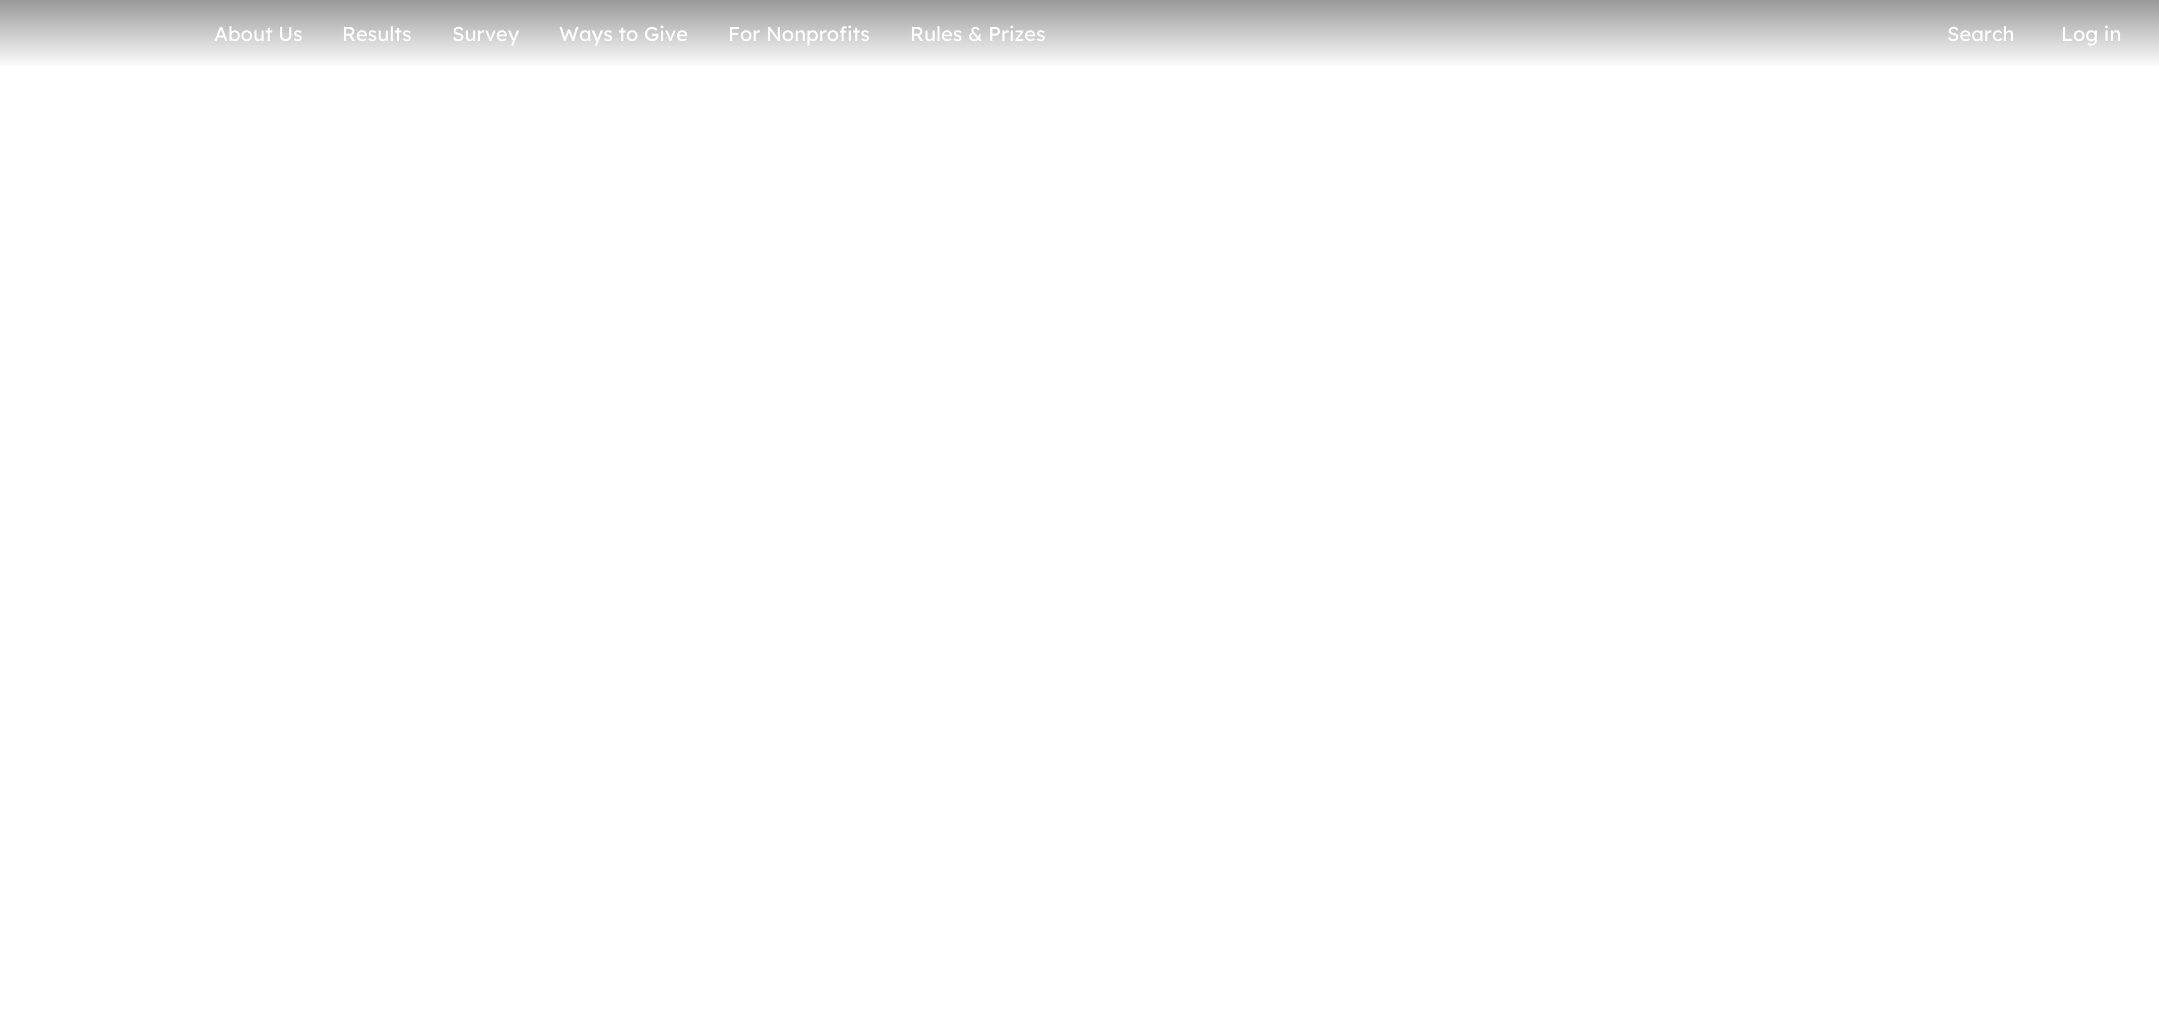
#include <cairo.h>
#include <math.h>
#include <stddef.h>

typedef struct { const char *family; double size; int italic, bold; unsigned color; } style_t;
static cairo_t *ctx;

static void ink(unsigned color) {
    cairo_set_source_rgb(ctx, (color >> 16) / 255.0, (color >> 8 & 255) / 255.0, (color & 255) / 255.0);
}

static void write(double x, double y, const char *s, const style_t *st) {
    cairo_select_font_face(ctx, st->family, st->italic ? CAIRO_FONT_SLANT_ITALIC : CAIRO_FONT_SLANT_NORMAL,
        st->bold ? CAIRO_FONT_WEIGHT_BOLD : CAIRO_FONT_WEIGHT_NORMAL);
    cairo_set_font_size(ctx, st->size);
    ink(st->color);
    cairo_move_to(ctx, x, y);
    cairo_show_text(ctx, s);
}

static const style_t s1 = {"Lexend Deca", 20, 0, 0, 0xffffff};

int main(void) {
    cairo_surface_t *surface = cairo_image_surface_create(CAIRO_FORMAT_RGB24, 2159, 1025);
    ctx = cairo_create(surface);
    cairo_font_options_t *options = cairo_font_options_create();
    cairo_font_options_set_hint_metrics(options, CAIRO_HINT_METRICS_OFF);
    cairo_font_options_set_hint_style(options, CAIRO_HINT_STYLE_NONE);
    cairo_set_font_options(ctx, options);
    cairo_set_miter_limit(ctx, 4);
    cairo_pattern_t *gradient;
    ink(0xffffff);
    cairo_paint(ctx);
    gradient = cairo_pattern_create_linear(1080, 0, 1080, 68);
    cairo_pattern_add_color_stop_rgba(gradient, 0, 0.6, 0.6, 0.6, 1);
    cairo_pattern_add_color_stop_rgba(gradient, 1, 1, 1, 1, 1);
    cairo_set_source(ctx, gradient);
    cairo_pattern_destroy(gradient);
    cairo_rectangle(ctx, 0, 0, 2159, 66);
    cairo_fill(ctx);
    write(214, 41, "About Us", &s1);
    write(342, 41, "Results", &s1);
    write(452, 41, "Survey", &s1);
    write(559, 41, "Ways to Give", &s1);
    write(728, 41, "For Nonprofits", &s1);
    write(910, 41, "Rules & Prizes", &s1);
    write(1947, 41, "Search", &s1);
    write(2061, 41, "Log in", &s1);
    cairo_surface_write_to_png(surface, "screenshot.png");
    cairo_font_options_destroy(options);
    cairo_destroy(ctx);
    cairo_surface_destroy(surface);
    return 0;
}
